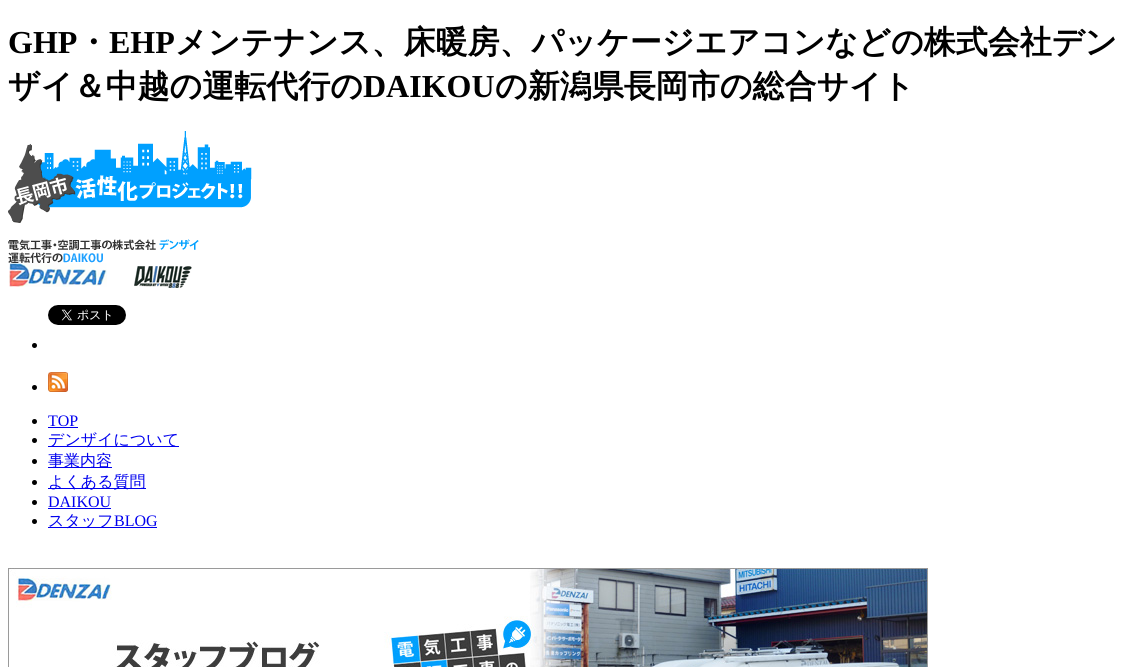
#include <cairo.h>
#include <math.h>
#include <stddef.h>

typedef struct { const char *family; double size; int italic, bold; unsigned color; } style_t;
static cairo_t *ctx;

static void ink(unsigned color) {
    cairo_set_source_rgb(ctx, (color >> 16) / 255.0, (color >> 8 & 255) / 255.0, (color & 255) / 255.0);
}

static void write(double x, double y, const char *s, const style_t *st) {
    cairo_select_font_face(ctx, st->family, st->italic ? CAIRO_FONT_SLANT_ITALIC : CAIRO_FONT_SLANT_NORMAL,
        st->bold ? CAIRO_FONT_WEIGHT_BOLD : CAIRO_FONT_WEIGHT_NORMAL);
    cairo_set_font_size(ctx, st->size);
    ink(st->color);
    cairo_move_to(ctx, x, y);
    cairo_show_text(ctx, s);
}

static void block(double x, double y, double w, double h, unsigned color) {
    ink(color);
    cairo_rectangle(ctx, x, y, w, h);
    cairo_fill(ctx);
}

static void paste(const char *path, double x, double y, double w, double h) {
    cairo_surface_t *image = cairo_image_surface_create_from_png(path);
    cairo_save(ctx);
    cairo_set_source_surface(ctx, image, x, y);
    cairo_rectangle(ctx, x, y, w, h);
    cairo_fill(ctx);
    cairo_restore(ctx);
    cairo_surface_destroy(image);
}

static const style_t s1 = {"Liberation Serif", 32, 0, 1, 0x000000};
static const style_t s2 = {"WenQuanYi Zen Hei", 32, 0, 1, 0x000000};
static const style_t s3 = {"Liberation Serif", 16, 0, 0, 0x0000ee};
static const style_t s4 = {"WenQuanYi Zen Hei Medium", 16, 0, 0, 0x0000ee};

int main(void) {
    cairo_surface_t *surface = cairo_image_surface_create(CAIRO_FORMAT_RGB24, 1131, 667);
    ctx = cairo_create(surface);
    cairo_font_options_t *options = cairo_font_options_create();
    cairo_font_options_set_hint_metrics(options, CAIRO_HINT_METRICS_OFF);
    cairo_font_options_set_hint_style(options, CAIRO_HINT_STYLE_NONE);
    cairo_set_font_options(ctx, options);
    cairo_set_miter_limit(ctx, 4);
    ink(0xffffff);
    cairo_paint(ctx);
    write(8, 53, "GHP", &s1);
    write(77, 53, "・", &s2);
    write(109, 53, "EHP", &s1);
    write(175, 53, "メンテナンス、床暖房、パッケージエアコンなどの株式会社デン", &s2);
    write(8, 97, "ザイ＆中越の運転代行の", &s2);
    write(363, 97, "DAIKOU", &s1);
    write(495, 97, "の新潟県長岡市の総合サイト", &s2);
    paste("pic1.png", 8, 131, 244, 92);
    paste("pic2.png", 8, 239, 191, 24);
    paste("pic3.png", 9, 263, 183, 25);
    paste("pic4.png", 48, 305, 78, 20);
    cairo_arc(ctx, 34.5, 345.5, 2.5, 0, 2 * M_PI);
    cairo_fill(ctx);
    cairo_arc(ctx, 34.5, 387.5, 2.5, 0, 2 * M_PI);
    cairo_fill(ctx);
    paste("pic5.png", 48, 372, 20, 20);
    cairo_arc(ctx, 34.5, 421.5, 2.5, 0, 2 * M_PI);
    cairo_fill(ctx);
    write(48, 426, "TOP", &s3);
    block(48, 427, 30, 1, 0x0000ee);
    ink(0x000000);
    cairo_new_path(ctx);
    cairo_arc(ctx, 34.5, 440.5, 2.5, 0, 2 * M_PI);
    cairo_fill(ctx);
    block(48, 446, 131, 1, 0x0000ee);
    write(48, 445, "デンザイについて", &s4);
    ink(0x000000);
    cairo_new_path(ctx);
    cairo_arc(ctx, 34.5, 461.5, 2.5, 0, 2 * M_PI);
    cairo_fill(ctx);
    block(48, 467, 64, 1, 0x0000ee);
    write(48, 466, "事業内容", &s4);
    ink(0x000000);
    cairo_new_path(ctx);
    cairo_arc(ctx, 34.5, 482.5, 2.5, 0, 2 * M_PI);
    cairo_fill(ctx);
    block(48, 488, 98, 1, 0x0000ee);
    write(48, 487, "よくある質問", &s4);
    ink(0x000000);
    cairo_new_path(ctx);
    cairo_arc(ctx, 34.5, 502.5, 2.5, 0, 2 * M_PI);
    cairo_fill(ctx);
    write(48, 507, "DAIKOU", &s3);
    block(48, 508, 63, 1, 0x0000ee);
    ink(0x000000);
    cairo_new_path(ctx);
    cairo_arc(ctx, 34.5, 521.5, 2.5, 0, 2 * M_PI);
    cairo_fill(ctx);
    block(48, 527, 109, 1, 0x0000ee);
    write(48, 526, "スタッフ", &s4);
    write(114, 526, "BLOG", &s3);
    paste("pic6.png", 8, 568, 920, 99);
    cairo_surface_write_to_png(surface, "screenshot.png");
    cairo_font_options_destroy(options);
    cairo_destroy(ctx);
    cairo_surface_destroy(surface);
    return 0;
}
